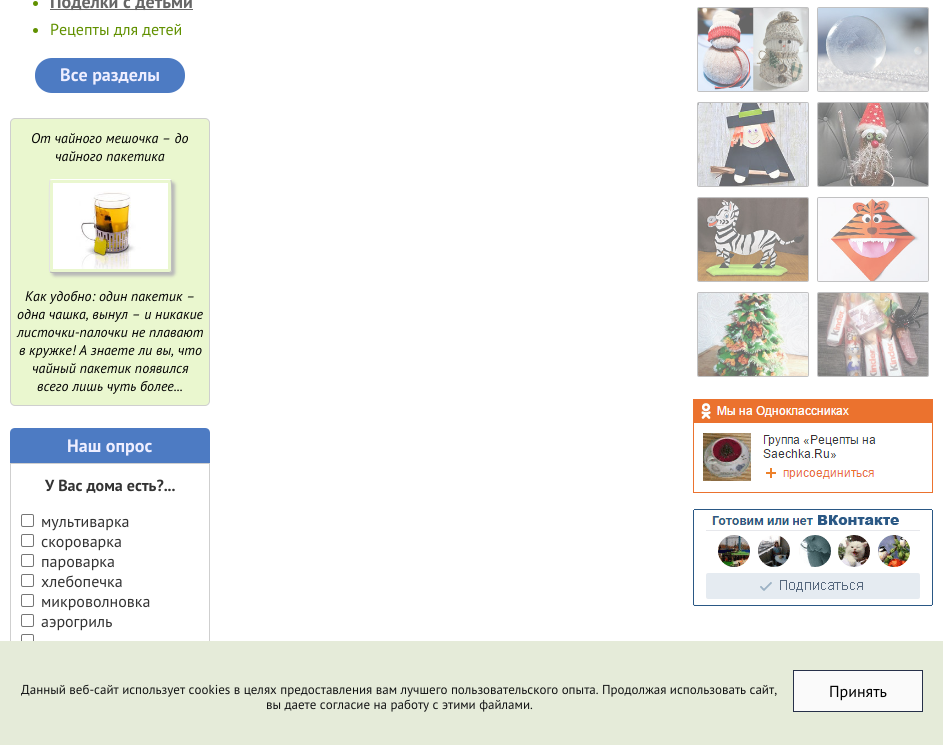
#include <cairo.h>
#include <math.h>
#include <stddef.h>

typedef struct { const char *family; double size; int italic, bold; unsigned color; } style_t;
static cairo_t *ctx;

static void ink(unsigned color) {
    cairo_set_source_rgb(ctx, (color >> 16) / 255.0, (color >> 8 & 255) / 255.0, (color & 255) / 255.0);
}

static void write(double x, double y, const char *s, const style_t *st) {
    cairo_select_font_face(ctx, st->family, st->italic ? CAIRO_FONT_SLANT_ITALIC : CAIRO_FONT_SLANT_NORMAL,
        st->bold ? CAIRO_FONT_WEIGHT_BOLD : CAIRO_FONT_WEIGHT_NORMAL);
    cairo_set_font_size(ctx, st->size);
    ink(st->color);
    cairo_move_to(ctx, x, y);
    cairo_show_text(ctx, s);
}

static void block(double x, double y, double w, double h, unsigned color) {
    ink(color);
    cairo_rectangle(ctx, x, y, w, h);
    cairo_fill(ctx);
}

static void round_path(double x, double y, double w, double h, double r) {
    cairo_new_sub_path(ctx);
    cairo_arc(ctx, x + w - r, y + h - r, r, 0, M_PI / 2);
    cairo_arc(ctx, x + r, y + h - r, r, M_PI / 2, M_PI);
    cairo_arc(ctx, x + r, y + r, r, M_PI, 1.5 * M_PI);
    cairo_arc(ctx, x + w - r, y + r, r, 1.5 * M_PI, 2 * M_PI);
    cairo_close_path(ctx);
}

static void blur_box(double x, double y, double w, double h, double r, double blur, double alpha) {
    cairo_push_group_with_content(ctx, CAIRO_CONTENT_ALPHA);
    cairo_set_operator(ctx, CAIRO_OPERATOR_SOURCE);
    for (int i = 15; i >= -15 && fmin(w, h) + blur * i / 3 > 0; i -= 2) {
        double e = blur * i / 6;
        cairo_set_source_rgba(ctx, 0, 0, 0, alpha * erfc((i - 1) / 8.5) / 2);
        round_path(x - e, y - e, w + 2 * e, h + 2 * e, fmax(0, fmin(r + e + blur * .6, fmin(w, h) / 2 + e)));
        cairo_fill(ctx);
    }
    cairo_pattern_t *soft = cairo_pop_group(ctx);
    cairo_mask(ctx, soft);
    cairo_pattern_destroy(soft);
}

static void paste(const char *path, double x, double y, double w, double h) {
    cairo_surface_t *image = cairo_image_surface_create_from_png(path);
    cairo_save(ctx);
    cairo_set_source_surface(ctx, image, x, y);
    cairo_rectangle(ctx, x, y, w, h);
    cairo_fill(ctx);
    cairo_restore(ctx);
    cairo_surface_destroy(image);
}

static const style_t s1 = {"PT Sans", 18, 0, 1, 0x666666};
static const style_t s2 = {"PT Sans", 16, 0, 0, 0x619100};
static const style_t s3 = {"PT Sans", 18, 0, 1, 0xeeeeff};
static const style_t s4 = {"PT Sans", 14, 1, 0, 0x000000};
static const style_t s5 = {"PT Sans", 16, 0, 1, 0x333333};
static const style_t s6 = {"PT Sans", 16, 0, 0, 0x333333};
static const style_t s7 = {"PT Sans", 13, 0, 0, 0x121314};
static const style_t s8 = {"PT Sans", 16, 0, 0, 0x000000};

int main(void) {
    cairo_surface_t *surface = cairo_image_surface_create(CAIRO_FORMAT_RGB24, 943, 745);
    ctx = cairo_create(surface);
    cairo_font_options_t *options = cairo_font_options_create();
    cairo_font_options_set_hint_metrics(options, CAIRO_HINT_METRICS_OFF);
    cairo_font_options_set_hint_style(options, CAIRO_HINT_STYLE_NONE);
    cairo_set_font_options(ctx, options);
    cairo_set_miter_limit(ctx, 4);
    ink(0xffffff);
    cairo_paint(ctx);
    ink(0x619100);
    cairo_arc(ctx, 35.5, 3.5, 2.5, 0, 2 * M_PI);
    cairo_fill(ctx);
    block(50, 9, 143, 1, 0x666666);
    write(50, 8, "Поделки с детьми", &s1);
    ink(0x619100);
    cairo_new_path(ctx);
    cairo_arc(ctx, 35.5, 30.5, 2.5, 0, 2 * M_PI);
    cairo_fill(ctx);
    write(50, 35, "Рецепты для детей", &s2);
    ink(0x4d7bc3);
    round_path(35, 58, 150, 35, 17);
    cairo_fill(ctx);
    write(60, 81, "Все разделы", &s3);
    ink(0xeaf7cf);
    round_path(10.5, 118.5, 199, 287, 4.5);
    cairo_fill_preserve(ctx);
    ink(0xcfcfcf);
    cairo_set_line_width(ctx, 1);
    cairo_stroke(ctx);
    write(31, 143, "От чайного мешочка – до", &s4);
    write(55, 161, "чайного пакетика", &s4);
    cairo_save(ctx);
    cairo_set_fill_rule(ctx, CAIRO_FILL_RULE_EVEN_ODD);
    cairo_new_path(ctx);
    cairo_move_to(ctx, 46, 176);
    cairo_line_to(ctx, 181, 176);
    cairo_line_to(ctx, 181, 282);
    cairo_line_to(ctx, 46, 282);
    cairo_close_path(ctx);
    cairo_move_to(ctx, 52, 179);
    cairo_line_to(ctx, 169, 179);
    cairo_curve_to(ctx, 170.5, 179, 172, 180.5, 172, 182);
    cairo_line_to(ctx, 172, 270);
    cairo_curve_to(ctx, 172, 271.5, 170.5, 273, 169, 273);
    cairo_line_to(ctx, 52, 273);
    cairo_curve_to(ctx, 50.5, 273, 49, 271.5, 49, 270);
    cairo_line_to(ctx, 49, 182);
    cairo_curve_to(ctx, 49, 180.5, 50.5, 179, 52, 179);
    cairo_close_path(ctx);
    cairo_clip(ctx);
    ink(0xb8b8b8);
    blur_box(52, 182, 123, 94, 3, 1.5, 1);
    cairo_restore(ctx);
    cairo_new_path(ctx);
    cairo_move_to(ctx, 50, 180);
    cairo_line_to(ctx, 52, 179.5);
    cairo_line_to(ctx, 169, 179.5);
    cairo_line_to(ctx, 171, 180);
    ink(0xffffff);
    cairo_stroke(ctx);
    cairo_new_path(ctx);
    cairo_move_to(ctx, 171, 180);
    cairo_line_to(ctx, 171, 180.5);
    cairo_curve_to(ctx, 172.5, 182.5, 171.5, 247.5, 171.5, 255.5);
    cairo_line_to(ctx, 171.5, 270);
    cairo_line_to(ctx, 171, 272);
    ink(0xbdbdbd);
    cairo_stroke(ctx);
    cairo_new_path(ctx);
    cairo_move_to(ctx, 171, 272);
    cairo_line_to(ctx, 169, 272.5);
    cairo_line_to(ctx, 71.5, 272.5);
    cairo_line_to(ctx, 52, 272.5);
    cairo_line_to(ctx, 50, 272);
    ink(0xb5b5b5);
    cairo_stroke(ctx);
    cairo_new_path(ctx);
    cairo_move_to(ctx, 50, 272);
    cairo_line_to(ctx, 49.5, 270);
    cairo_line_to(ctx, 49.5, 255.5);
    cairo_curve_to(ctx, 49.5, 247.5, 48.5, 182.5, 50, 180.5);
    cairo_line_to(ctx, 50, 180);
    ink(0xe4e4e4);
    cairo_stroke(ctx);
    paste("pic1.png", 53, 183, 115, 86);
    write(25, 301, "Как удобно: один пакетик –", &s4);
    write(17, 319, "одна чашка, вынул – и никакие", &s4);
    write(17, 337, "листочки-палочки не плавают", &s4);
    write(19, 355, "в кружке! А знаете ли вы, что", &s4);
    write(32, 373, "чайный пакетик появился", &s4);
    write(37, 391, "всего лишь чуть более...", &s4);
    ink(0x4d7bc3);
    cairo_new_path(ctx);
    cairo_move_to(ctx, 15, 428);
    cairo_line_to(ctx, 205, 428);
    cairo_curve_to(ctx, 208, 428, 210, 430, 210, 433);
    cairo_line_to(ctx, 210, 463);
    cairo_line_to(ctx, 10, 463);
    cairo_line_to(ctx, 10, 433);
    cairo_curve_to(ctx, 10, 430, 12, 428, 15, 428);
    cairo_close_path(ctx);
    cairo_fill(ctx);
    write(67, 452, "Наш опрос", &s3);
    cairo_rectangle(ctx, 10.5, 463.5, 199, 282);
    ink(0xcfcfcf);
    cairo_stroke(ctx);
    write(45, 491, "У Вас дома есть?...", &s5);
    round_path(21.5, 514.5, 12, 12, 1.5);
    ink(0x767676);
    cairo_stroke(ctx);
    write(41, 527, "мультиварка", &s6);
    round_path(21.5, 534.5, 12, 12, 1.5);
    ink(0x767676);
    cairo_stroke(ctx);
    write(41, 547, "скороварка", &s6);
    round_path(21.5, 554.5, 12, 12, 1.5);
    ink(0x767676);
    cairo_stroke(ctx);
    write(41, 567, "пароварка", &s6);
    round_path(21.5, 574.5, 12, 12, 1.5);
    ink(0x767676);
    cairo_stroke(ctx);
    write(41, 587, "хлебопечка", &s6);
    round_path(21.5, 594.5, 12, 12, 1.5);
    ink(0x767676);
    cairo_stroke(ctx);
    write(41, 607, "микроволновка", &s6);
    round_path(21.5, 614.5, 12, 12, 1.5);
    ink(0x767676);
    cairo_stroke(ctx);
    write(41, 627, "аэрогриль", &s6);
    round_path(21.5, 634.5, 12, 12, 1.5);
    ink(0x767676);
    cairo_stroke(ctx);
    round_path(697.5, 7.5, 111, 84, 1.5);
    ink(0xc1c1c2);
    cairo_stroke(ctx);
    paste("pic2.png", 698, 8, 110, 83);
    round_path(817.5, 7.5, 111, 84, 1.5);
    cairo_stroke(ctx);
    paste("pic3.png", 818, 8, 110, 83);
    round_path(697.5, 102.5, 111, 84, 1.5);
    cairo_stroke(ctx);
    paste("pic4.png", 698, 103, 110, 83);
    round_path(817.5, 102.5, 111, 84, 1.5);
    cairo_stroke(ctx);
    paste("pic5.png", 818, 103, 110, 83);
    round_path(697.5, 197.5, 111, 84, 1.5);
    cairo_stroke(ctx);
    paste("pic6.png", 698, 198, 110, 83);
    round_path(817.5, 197.5, 111, 84, 1.5);
    cairo_stroke(ctx);
    paste("pic7.png", 818, 198, 110, 83);
    round_path(697.5, 292.5, 111, 84, 1.5);
    cairo_stroke(ctx);
    paste("pic8.png", 698, 293, 110, 83);
    round_path(817.5, 292.5, 111, 84, 1.5);
    cairo_stroke(ctx);
    paste("pic9.png", 818, 293, 110, 83);
    paste("pic10.png", 693, 399, 240, 94);
    paste("pic11.png", 693, 509, 240, 97);
    block(0, 641, 943, 104, 0xe5ebd9);
    write(21, 694, "Данный веб-сайт использует cookies в целях предоставления вам лучшего пользовательского опыта. Продолжая использовать сайт,", &s7);
    write(266, 709, "вы даете согласие на работу с этими файлами.", &s7);
    ink(0xfafafa);
    cairo_rectangle(ctx, 793.5, 670.5, 129, 41);
    cairo_fill_preserve(ctx);
    ink(0x263049);
    cairo_stroke(ctx);
    write(829, 697, "Принять", &s8);
    cairo_surface_write_to_png(surface, "screenshot.png");
    cairo_font_options_destroy(options);
    cairo_destroy(ctx);
    cairo_surface_destroy(surface);
    return 0;
}
